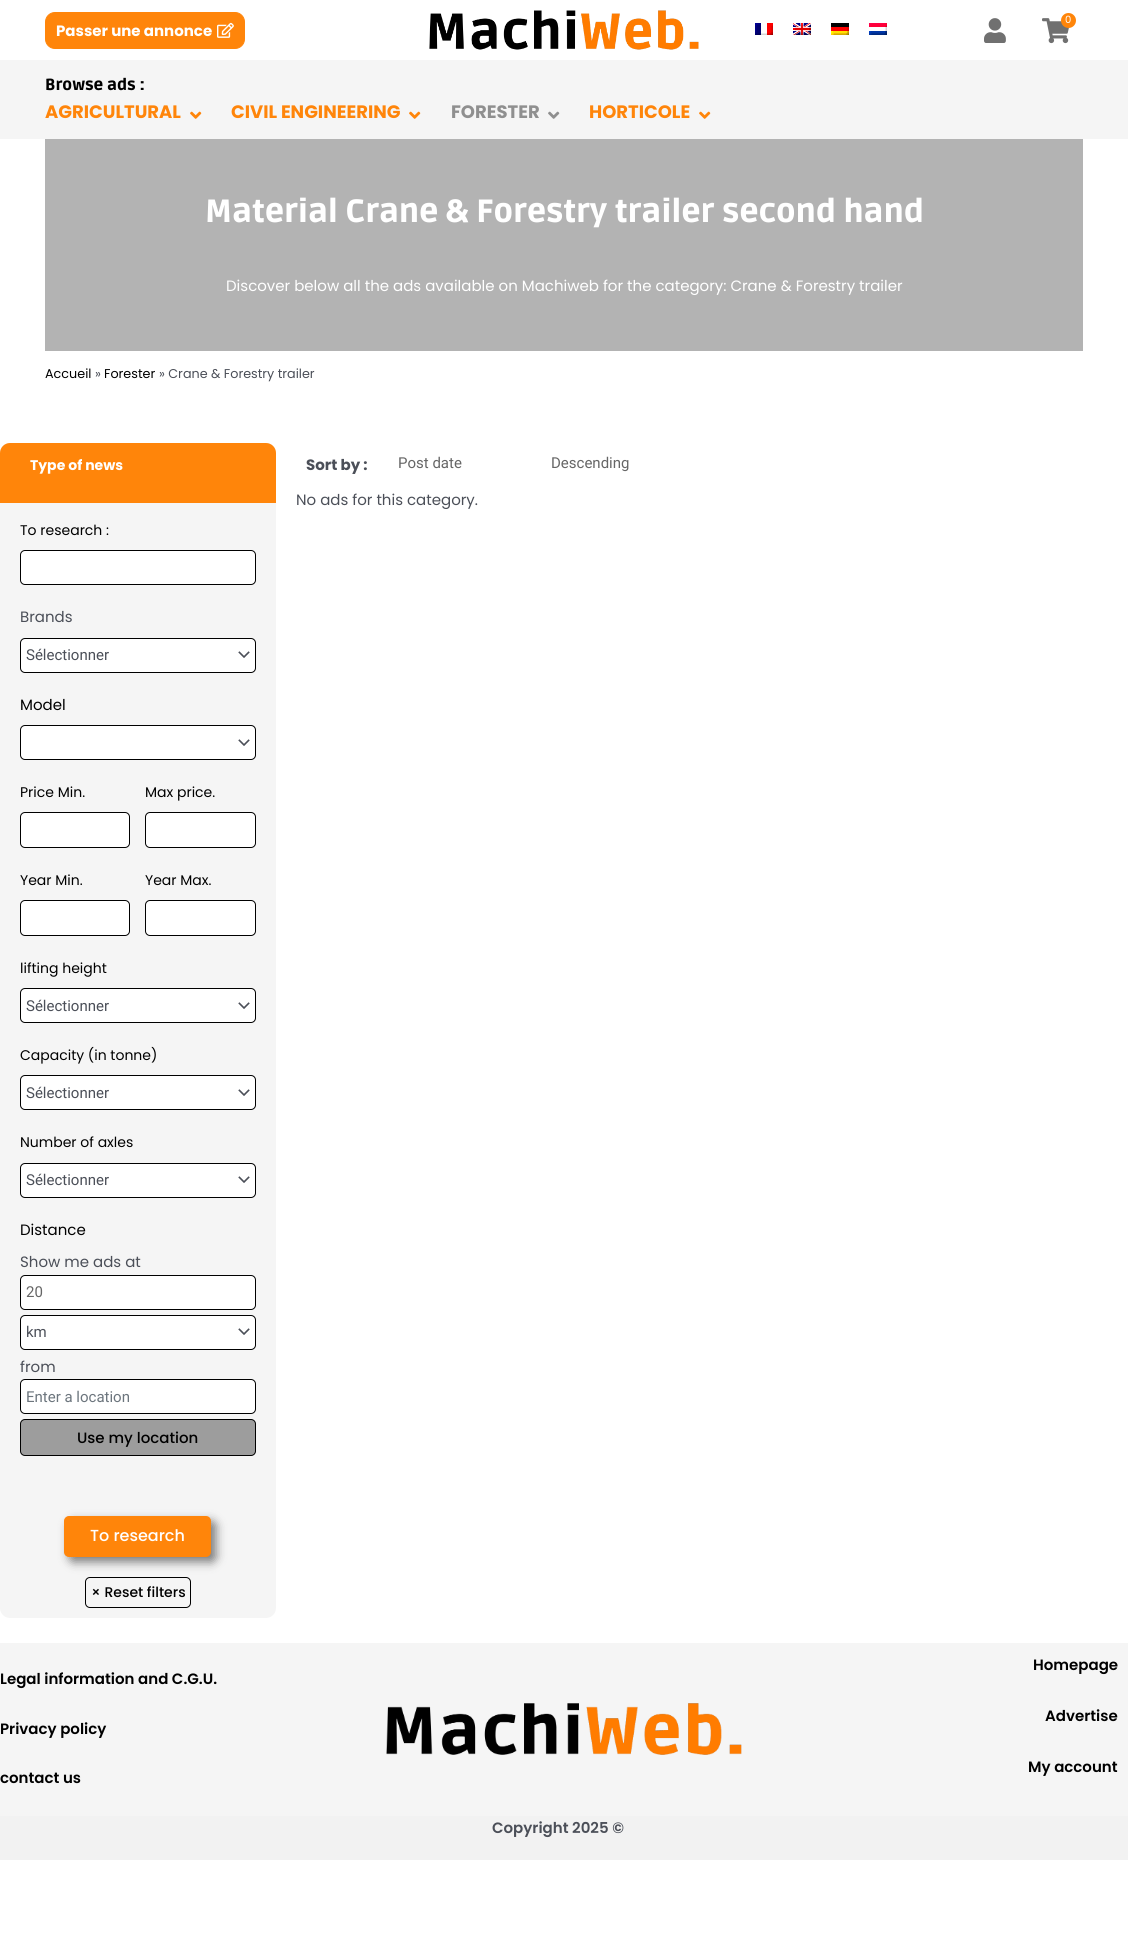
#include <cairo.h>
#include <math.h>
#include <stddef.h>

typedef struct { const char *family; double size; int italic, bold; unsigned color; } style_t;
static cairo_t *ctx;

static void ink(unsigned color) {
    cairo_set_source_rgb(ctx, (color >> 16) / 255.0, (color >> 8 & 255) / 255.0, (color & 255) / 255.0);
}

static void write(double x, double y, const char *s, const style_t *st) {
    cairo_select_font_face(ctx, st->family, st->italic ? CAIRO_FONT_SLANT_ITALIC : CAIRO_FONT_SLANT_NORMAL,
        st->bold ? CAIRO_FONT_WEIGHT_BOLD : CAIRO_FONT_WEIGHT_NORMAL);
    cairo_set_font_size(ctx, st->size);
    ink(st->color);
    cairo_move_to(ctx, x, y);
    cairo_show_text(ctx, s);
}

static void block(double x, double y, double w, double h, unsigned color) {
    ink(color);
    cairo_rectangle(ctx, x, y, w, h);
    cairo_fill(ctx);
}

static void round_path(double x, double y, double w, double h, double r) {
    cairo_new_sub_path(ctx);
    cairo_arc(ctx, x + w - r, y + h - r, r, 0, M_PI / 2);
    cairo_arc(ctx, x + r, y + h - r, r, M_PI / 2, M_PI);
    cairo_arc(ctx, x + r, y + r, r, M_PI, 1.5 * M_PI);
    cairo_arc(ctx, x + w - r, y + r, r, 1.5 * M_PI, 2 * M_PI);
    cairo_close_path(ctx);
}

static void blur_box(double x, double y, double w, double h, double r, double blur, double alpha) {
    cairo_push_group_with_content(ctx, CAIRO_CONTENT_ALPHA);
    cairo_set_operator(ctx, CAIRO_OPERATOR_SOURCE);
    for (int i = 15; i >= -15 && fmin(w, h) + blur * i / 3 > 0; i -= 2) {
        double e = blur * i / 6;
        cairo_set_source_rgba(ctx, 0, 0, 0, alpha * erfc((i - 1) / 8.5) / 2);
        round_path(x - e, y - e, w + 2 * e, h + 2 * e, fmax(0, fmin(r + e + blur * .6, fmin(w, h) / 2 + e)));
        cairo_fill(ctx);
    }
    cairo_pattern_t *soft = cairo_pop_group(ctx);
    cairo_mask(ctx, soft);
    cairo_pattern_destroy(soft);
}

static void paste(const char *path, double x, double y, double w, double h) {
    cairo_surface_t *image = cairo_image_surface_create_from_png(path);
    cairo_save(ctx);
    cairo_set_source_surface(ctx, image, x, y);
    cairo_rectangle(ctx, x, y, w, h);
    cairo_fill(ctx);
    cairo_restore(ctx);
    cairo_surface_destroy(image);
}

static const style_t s1 = {"Poppins", 10, 0, 0, 0xffffff};
static const style_t s2 = {"Poppins", 15, 0, 1, 0xffffff};
static const style_t s3 = {"Ruda Black", 16, 0, 0, 0x000000};
static const style_t s4 = {"Poppins", 18, 0, 1, 0xff850a};
static const style_t s5 = {"Poppins", 18, 0, 1, 0x8f8f8f};
static const style_t s6 = {"Ruda Black", 32, 0, 0, 0xffffff};
static const style_t s7 = {"Poppins", 15, 0, 0, 0xffffff};
static const style_t s8 = {"Poppins", 12.75, 0, 0, 0x000000};
static const style_t s9 = {"Poppins", 12.75, 0, 0, 0x4b4f58};
static const style_t s10 = {"Poppins", 14, 0, 1, 0xffffff};
static const style_t s11 = {"Poppins", 14, 0, 0, 0x000000};
static const style_t s12 = {"Poppins", 15, 0, 0, 0x4b4f58};
static const style_t s13 = {"Roboto", 15, 0, 0, 0x4b4f58};
static const style_t s14 = {"Poppins", 15, 0, 0, 0x000000};
static const style_t s15 = {"Roboto", 15, 0, 0, 0x666666};
static const style_t s16 = {"Roboto", 15, 0, 0, 0x6c757d};
static const style_t s17 = {"Poppins Medium", 15, 0, 0, 0x000000};
static const style_t s18 = {"Poppins Medium", 16, 0, 0, 0xffffff};
static const style_t s19 = {"Poppins Medium", 14, 0, 0, 0x000000};
static const style_t s20 = {"Poppins", 15, 0, 1, 0x4b4f58};
static const style_t s21 = {"Poppins SemiBold", 15, 0, 0, 0x000000};
static const style_t s22 = {"Poppins SemiBold", 15, 0, 0, 0x4b4f58};

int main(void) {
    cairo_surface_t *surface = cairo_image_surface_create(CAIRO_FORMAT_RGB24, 1128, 1942);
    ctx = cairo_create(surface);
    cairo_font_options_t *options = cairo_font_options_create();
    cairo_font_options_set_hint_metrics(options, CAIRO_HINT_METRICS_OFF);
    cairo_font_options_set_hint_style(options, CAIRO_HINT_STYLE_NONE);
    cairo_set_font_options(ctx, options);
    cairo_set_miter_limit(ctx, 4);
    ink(0xffffff);
    cairo_paint(ctx);
    paste("pic1.png", 429, 10, 270, 40);
    paste("pic2.png", 755, 23, 18, 12);
    paste("pic3.png", 793, 23, 18, 12);
    paste("pic4.png", 831, 23, 18, 12);
    paste("pic5.png", 869, 23, 18, 12);
    paste("pic6.png", 984, 18, 22, 25);
    paste("pic7.png", 1042, 18, 28, 26);
    ink(0xff850a);
    cairo_arc(ctx, 1068.5, 20.5, 7.5, 0, 2 * M_PI);
    cairo_fill(ctx);
    write(1065, 23, "0", &s1);
    ink(0xff850a);
    round_path(45.5, 12.5, 199, 36, 9.5);
    cairo_fill_preserve(ctx);
    cairo_set_line_width(ctx, 1);
    cairo_stroke(ctx);
    write(56, 36, "Passer une annonce", &s2);
    paste("pic8.png", 217, 22, 17, 16);
    block(0, 60, 1128, 79, 0xf5f5f5);
    write(45, 90, "Browse ads :", &s3);
    write(45, 118, "AGRICULTURAL", &s4);
    paste("pic9.png", 190, 111, 12, 8);
    write(231, 118, "CIVIL ENGINEERING", &s4);
    paste("pic9.png", 409, 111, 12, 8);
    write(451, 118, "FORESTER", &s5);
    paste("pic10.png", 548, 111, 12, 8);
    write(589, 118, "HORTICOLE", &s4);
    paste("pic9.png", 699, 111, 12, 8);
    block(45, 139, 1038, 212, 0xb3b3b3);
    write(205, 222, "Material Crane & Forestry trailer second hand", &s6);
    write(226, 291, "Discover below all the ads available on Machiweb for the category: Crane & Forestry trailer", &s7);
    write(45, 378, "Accueil", &s8);
    write(95, 378, "»", &s9);
    write(104, 378, "Forester", &s8);
    write(159, 378, "» Crane & Forestry trailer", &s9);
    ink(0xf5f5f5);
    round_path(0, 443, 276, 1175, 10);
    cairo_fill(ctx);
    ink(0xff850a);
    cairo_new_path(ctx);
    cairo_move_to(ctx, 10, 443);
    cairo_line_to(ctx, 266, 443);
    cairo_curve_to(ctx, 271.5, 443, 276, 447.5, 276, 453);
    cairo_line_to(ctx, 276, 503);
    cairo_line_to(ctx, 0, 503);
    cairo_line_to(ctx, 0, 453);
    cairo_curve_to(ctx, 0, 447.5, 4.5, 443, 10, 443);
    cairo_close_path(ctx);
    cairo_fill(ctx);
    write(30, 470, "Type of news", &s10);
    write(20, 535, "To research :", &s11);
    ink(0xffffff);
    round_path(20.5, 550.5, 235, 34, 4.5);
    cairo_fill_preserve(ctx);
    ink(0x000000);
    cairo_stroke(ctx);
    write(20, 622, "Brands", &s12);
    ink(0xffffff);
    round_path(21, 639, 234, 33, 4);
    cairo_fill(ctx);
    paste("pic11.png", 238, 651, 12, 7);
    round_path(20.5, 638.5, 235, 34, 4.5);
    ink(0x000000);
    cairo_stroke(ctx);
    write(26, 660, "Sélectionner", &s13);
    write(20, 710, "Model", &s14);
    ink(0xffffff);
    round_path(21, 726, 234, 33, 4);
    cairo_fill(ctx);
    paste("pic11.png", 238, 739, 12, 7);
    round_path(20.5, 725.5, 235, 34, 4.5);
    ink(0x000000);
    cairo_stroke(ctx);
    write(20, 797, "Price Min.", &s11);
    ink(0xffffff);
    round_path(20.5, 812.5, 109, 35, 4.5);
    cairo_fill_preserve(ctx);
    ink(0x000000);
    cairo_stroke(ctx);
    write(145, 797, "Max price.", &s11);
    ink(0xffffff);
    round_path(145.5, 812.5, 110, 35, 4.5);
    cairo_fill_preserve(ctx);
    ink(0x000000);
    cairo_stroke(ctx);
    write(20, 885, "Year Min.", &s11);
    ink(0xffffff);
    round_path(20.5, 900.5, 109, 35, 4.5);
    cairo_fill_preserve(ctx);
    ink(0x000000);
    cairo_stroke(ctx);
    write(145, 885, "Year Max.", &s11);
    ink(0xffffff);
    round_path(145.5, 900.5, 110, 35, 4.5);
    cairo_fill_preserve(ctx);
    ink(0x000000);
    cairo_stroke(ctx);
    write(20, 973, "lifting height", &s11);
    ink(0xffffff);
    round_path(21, 989, 234, 33, 4);
    cairo_fill(ctx);
    paste("pic11.png", 238, 1002, 12, 7);
    round_path(20.5, 988.5, 235, 34, 4.5);
    ink(0x000000);
    cairo_stroke(ctx);
    write(26, 1011, "Sélectionner", &s13);
    write(20, 1060, "Capacity (in tonne)", &s11);
    ink(0xffffff);
    round_path(21, 1076, 234, 33, 4);
    cairo_fill(ctx);
    paste("pic11.png", 238, 1089, 12, 7);
    round_path(20.5, 1075.5, 235, 34, 4.5);
    ink(0x000000);
    cairo_stroke(ctx);
    write(26, 1098, "Sélectionner", &s13);
    write(20, 1147, "Number of axles", &s11);
    ink(0xffffff);
    round_path(21, 1164, 234, 33, 4);
    cairo_fill(ctx);
    paste("pic11.png", 238, 1176, 12, 7);
    round_path(20.5, 1163.5, 235, 34, 4.5);
    ink(0x000000);
    cairo_stroke(ctx);
    write(26, 1185, "Sélectionner", &s13);
    write(20, 1235, "Distance", &s14);
    write(20, 1267, "Show me ads at", &s12);
    ink(0xffffff);
    round_path(20.5, 1275.5, 235, 34, 4.5);
    cairo_fill_preserve(ctx);
    ink(0x000000);
    cairo_stroke(ctx);
    write(26, 1297, "20", &s15);
    ink(0xffffff);
    round_path(21, 1316, 234, 33, 4);
    cairo_fill(ctx);
    paste("pic11.png", 238, 1328, 12, 7);
    round_path(20.5, 1315.5, 235, 34, 4.5);
    ink(0x000000);
    cairo_stroke(ctx);
    write(26, 1337, "km", &s13);
    write(20, 1372, "from", &s12);
    ink(0xffffff);
    round_path(20.5, 1379.5, 235, 34, 4.5);
    cairo_fill_preserve(ctx);
    ink(0x000000);
    cairo_stroke(ctx);
    write(26, 1402, "Enter a location", &s16);
    ink(0x9d9d9d);
    round_path(20.5, 1419.5, 235, 36, 4.5);
    cairo_fill_preserve(ctx);
    ink(0x000000);
    cairo_stroke(ctx);
    write(77, 1443, "Use my location", &s17);
    ink(0x000000);
    blur_box(69, 1521, 147, 41, 5, 5, 0.5);
    ink(0xff850a);
    round_path(65, 1517, 145, 39, 4);
    cairo_fill_preserve(ctx);
    cairo_set_line_width(ctx, 2);
    cairo_stroke(ctx);
    write(90, 1541, "To research", &s18);
    round_path(85.5, 1577.5, 105, 30, 4.5);
    ink(0x000000);
    cairo_set_line_width(ctx, 1);
    cairo_stroke(ctx);
    write(91, 1597, "× Reset filters", &s19);
    write(306, 470, "Sort by :", &s20);
    write(398, 468, "Post date", &s15);
    write(551, 468, "Descending", &s15);
    write(296, 505, "No ads for this category.", &s12);
    block(0, 1643, 1128, 173, 0xf5f5f5);
    write(0, 1684, "Legal information and C.G.U.", &s21);
    write(0, 1734, "Privacy policy", &s21);
    write(0, 1783, "contact us", &s21);
    paste("pic12.png", 386, 1703, 356, 52);
    write(1033, 1670, "Homepage", &s21);
    write(1045, 1721, "Advertise", &s21);
    write(1028, 1772, "My account", &s21);
    block(0, 1816, 1128, 44, 0xf2f2f2);
    write(492, 1833, "Copyright 2025 ©", &s22);
    cairo_surface_write_to_png(surface, "screenshot.png");
    cairo_font_options_destroy(options);
    cairo_destroy(ctx);
    cairo_surface_destroy(surface);
    return 0;
}
